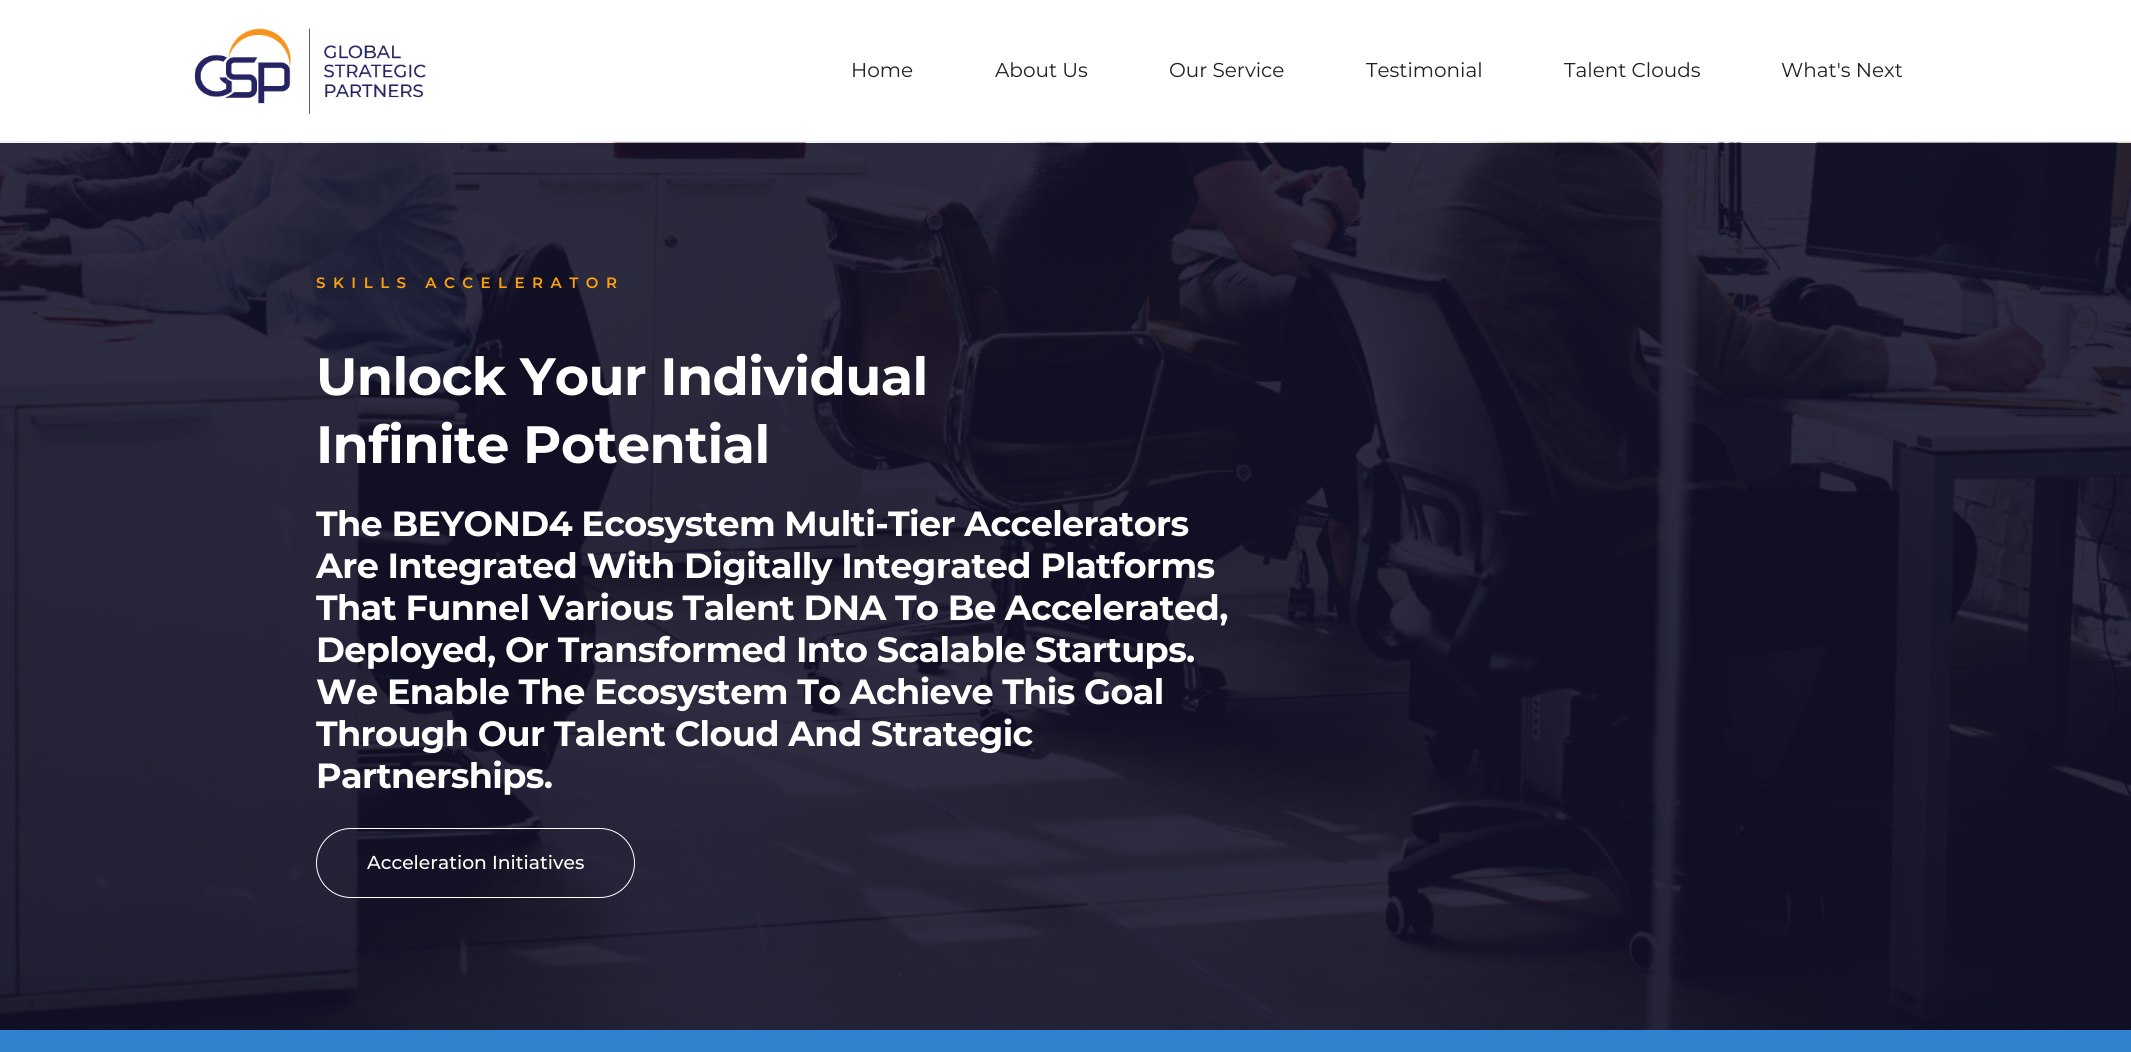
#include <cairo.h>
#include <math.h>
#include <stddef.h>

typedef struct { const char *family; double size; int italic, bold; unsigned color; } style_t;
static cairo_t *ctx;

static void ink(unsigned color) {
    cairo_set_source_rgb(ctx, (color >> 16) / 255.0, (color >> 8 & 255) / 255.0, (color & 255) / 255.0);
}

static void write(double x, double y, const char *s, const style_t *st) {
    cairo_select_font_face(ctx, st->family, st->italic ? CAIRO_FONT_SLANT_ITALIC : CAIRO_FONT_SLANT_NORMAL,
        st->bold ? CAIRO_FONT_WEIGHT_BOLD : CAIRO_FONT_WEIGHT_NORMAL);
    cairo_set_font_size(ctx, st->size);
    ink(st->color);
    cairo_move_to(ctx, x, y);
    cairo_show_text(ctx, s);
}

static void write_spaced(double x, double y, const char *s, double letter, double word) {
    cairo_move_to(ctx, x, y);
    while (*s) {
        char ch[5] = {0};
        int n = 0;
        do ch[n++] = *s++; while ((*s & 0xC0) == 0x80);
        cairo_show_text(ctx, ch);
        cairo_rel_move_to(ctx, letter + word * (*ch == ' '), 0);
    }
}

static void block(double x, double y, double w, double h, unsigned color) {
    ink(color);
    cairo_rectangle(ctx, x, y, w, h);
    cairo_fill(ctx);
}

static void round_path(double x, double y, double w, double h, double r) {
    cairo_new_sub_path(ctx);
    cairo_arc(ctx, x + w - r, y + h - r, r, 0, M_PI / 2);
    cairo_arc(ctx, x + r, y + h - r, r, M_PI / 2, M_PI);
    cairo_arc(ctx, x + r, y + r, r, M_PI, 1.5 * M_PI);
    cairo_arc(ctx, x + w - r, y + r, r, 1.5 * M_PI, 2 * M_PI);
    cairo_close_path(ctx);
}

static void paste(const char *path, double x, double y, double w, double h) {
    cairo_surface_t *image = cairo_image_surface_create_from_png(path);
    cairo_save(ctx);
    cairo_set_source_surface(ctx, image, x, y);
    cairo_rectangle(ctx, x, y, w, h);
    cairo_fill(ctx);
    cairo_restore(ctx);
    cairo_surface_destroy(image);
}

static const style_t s1 = {"Montserrat", 20, 0, 0, 0x1f2124};
static const style_t s2 = {"Montserrat Medium", 18.75, 0, 0, 0xffffff};

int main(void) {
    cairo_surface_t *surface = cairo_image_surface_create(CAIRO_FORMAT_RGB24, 2131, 1052);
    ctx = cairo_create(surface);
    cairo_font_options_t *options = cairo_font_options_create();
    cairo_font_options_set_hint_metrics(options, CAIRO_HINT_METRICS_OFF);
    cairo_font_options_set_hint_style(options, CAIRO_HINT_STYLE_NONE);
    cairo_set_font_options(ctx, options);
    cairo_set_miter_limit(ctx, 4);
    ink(0xffffff);
    cairo_paint(ctx);
    block(0, 141, 2131, 1, 0xe9eef0);
    paste("pic1.png", 194, 28, 232, 86);
    write(851, 77, "Home", &s1);
    write(995, 77, "About Us", &s1);
    write(1169, 77, "Our Service", &s1);
    write(1366, 77, "Testimonial", &s1);
    write(1564, 77, "Talent Clouds", &s1);
    write(1781, 77, "What's Next", &s1);
    paste("pic2.png", 0, 142, 2131, 888);
    cairo_select_font_face(ctx, "Montserrat SemiBold", CAIRO_FONT_SLANT_NORMAL, CAIRO_FONT_WEIGHT_NORMAL);
    cairo_set_font_size(ctx, 15);
    ink(0xfda20a);
    write_spaced(316, 288, "SKILLS ACCELERATOR", 7.5, 0);
    cairo_select_font_face(ctx, "Montserrat", CAIRO_FONT_SLANT_NORMAL, CAIRO_FONT_WEIGHT_BOLD);
    cairo_set_font_size(ctx, 52.5);
    ink(0xffffff);
    write_spaced(316, 395, "Unlock Your Individual", -0.6, 0);
    write_spaced(316, 463, "Infinite Potential", -0.6, 0);
    cairo_set_font_size(ctx, 35);
    write_spaced(316, 536, "The BEYOND4 Ecosystem Multi-Tier Accelerators", -0.6, 0);
    write_spaced(316, 578, "Are Integrated With Digitally Integrated Platforms", -0.6, 0);
    write_spaced(316, 620, "That Funnel Various Talent DNA To Be Accelerated,", -0.6, 0);
    write_spaced(316, 662, "Deployed, Or Transformed Into Scalable Startups.", -0.6, 0);
    write_spaced(316, 704, "We Enable The Ecosystem To Achieve This Goal", -0.6, 0);
    write_spaced(316, 746, "Through Our Talent Cloud And Strategic", -0.6, 0);
    write_spaced(316, 788, "Partnerships.", -0.6, 0);
    round_path(316.5, 828.5, 318, 69, 34.5);
    cairo_set_line_width(ctx, 1);
    cairo_stroke(ctx);
    write(367, 869, "Acceleration Initiatives", &s2);
    block(0, 1030, 2131, 22, 0x3182ce);
    cairo_surface_write_to_png(surface, "screenshot.png");
    cairo_font_options_destroy(options);
    cairo_destroy(ctx);
    cairo_surface_destroy(surface);
    return 0;
}
